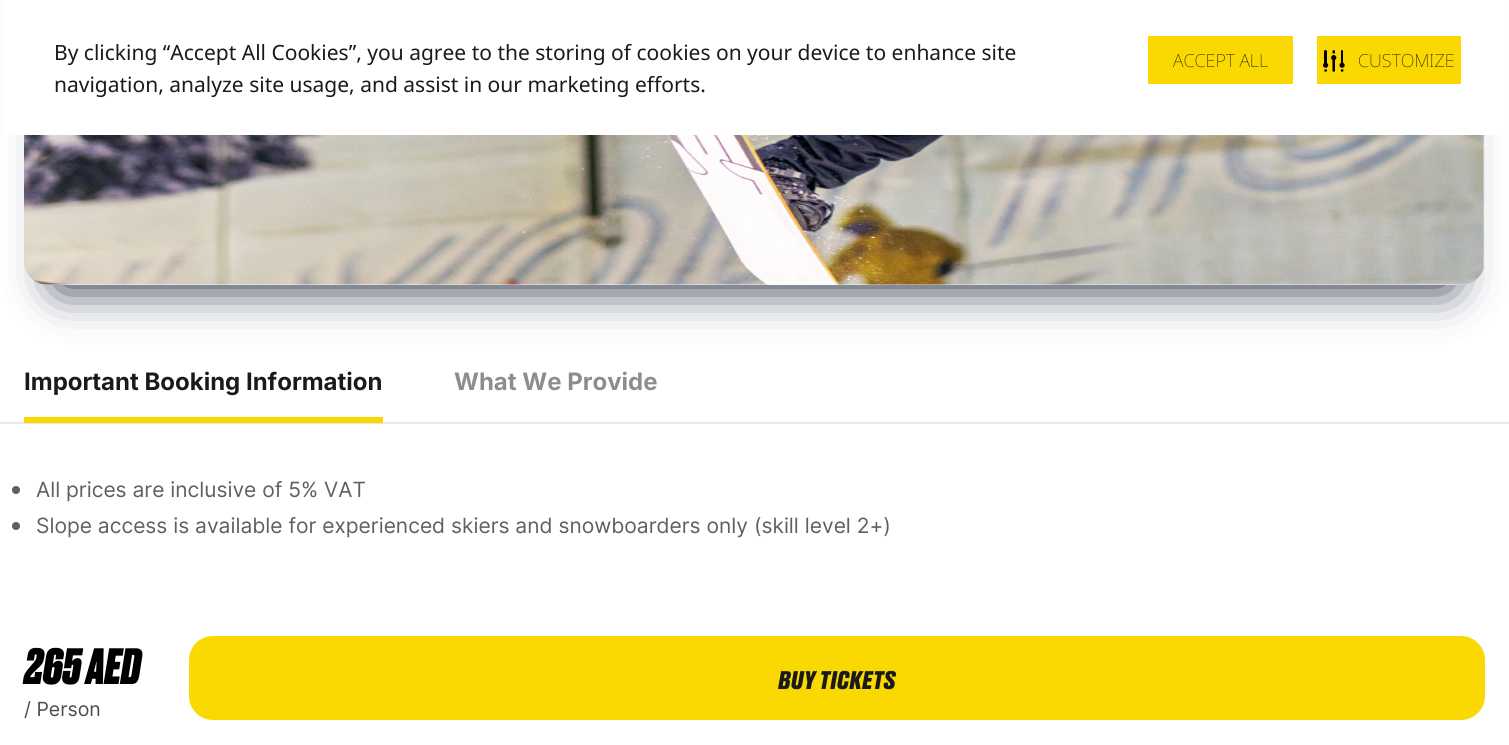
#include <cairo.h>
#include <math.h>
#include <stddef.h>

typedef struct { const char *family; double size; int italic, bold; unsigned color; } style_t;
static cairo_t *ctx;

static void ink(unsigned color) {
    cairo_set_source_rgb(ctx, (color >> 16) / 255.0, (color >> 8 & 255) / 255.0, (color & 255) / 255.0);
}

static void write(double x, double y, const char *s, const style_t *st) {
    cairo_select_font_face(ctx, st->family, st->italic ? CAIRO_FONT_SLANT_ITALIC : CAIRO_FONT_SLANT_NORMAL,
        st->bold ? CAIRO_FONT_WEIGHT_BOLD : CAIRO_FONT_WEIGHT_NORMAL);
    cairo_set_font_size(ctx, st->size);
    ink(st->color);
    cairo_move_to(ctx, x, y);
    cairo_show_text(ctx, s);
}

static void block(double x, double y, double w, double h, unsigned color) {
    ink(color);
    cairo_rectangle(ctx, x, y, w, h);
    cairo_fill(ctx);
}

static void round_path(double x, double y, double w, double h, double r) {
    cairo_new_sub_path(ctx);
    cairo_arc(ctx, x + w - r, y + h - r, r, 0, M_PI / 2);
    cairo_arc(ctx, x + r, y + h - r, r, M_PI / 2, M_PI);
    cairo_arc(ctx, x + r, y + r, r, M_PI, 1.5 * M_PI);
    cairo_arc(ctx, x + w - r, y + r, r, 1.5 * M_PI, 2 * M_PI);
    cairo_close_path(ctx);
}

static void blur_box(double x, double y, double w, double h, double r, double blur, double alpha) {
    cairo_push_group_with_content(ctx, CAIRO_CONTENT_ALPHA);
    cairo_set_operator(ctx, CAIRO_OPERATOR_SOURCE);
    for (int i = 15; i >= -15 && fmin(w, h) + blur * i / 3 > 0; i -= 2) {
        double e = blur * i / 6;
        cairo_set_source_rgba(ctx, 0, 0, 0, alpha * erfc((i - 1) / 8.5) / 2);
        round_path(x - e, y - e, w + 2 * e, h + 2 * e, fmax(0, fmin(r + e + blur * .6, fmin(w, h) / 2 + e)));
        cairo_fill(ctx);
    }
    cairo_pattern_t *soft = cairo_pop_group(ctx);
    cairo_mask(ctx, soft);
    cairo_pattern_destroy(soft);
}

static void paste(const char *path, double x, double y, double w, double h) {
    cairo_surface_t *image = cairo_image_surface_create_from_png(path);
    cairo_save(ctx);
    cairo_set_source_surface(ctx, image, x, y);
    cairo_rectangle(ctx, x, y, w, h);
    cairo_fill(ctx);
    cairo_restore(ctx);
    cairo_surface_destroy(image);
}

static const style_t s1 = {"Noto Sans", 21, 0, 0, 0x1a1a1a};
static const style_t s2 = {"Noto Sans Thin", 18, 0, 0, 0x000000};
static const style_t s3 = {"Inter", 24, 0, 1, 0x1a1a1a};
static const style_t s4 = {"Inter", 24, 0, 1, 0x8d8d8d};
static const style_t s5 = {"Inter", 21, 0, 0, 0x606060};
static const style_t s6 = {"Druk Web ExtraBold", 48, 1, 0, 0x000000};
static const style_t s7 = {"Inter", 19.5, 0, 0, 0x4d4d4d};
static const style_t s8 = {"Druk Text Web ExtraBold", 24, 1, 0, 0x1a1a1a};

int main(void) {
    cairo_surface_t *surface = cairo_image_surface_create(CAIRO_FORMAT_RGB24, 1509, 745);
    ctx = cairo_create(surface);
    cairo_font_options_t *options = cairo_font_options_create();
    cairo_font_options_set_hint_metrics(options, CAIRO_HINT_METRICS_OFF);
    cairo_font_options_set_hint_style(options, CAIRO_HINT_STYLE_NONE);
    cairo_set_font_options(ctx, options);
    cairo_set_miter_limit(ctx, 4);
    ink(0xffffff);
    cairo_paint(ctx);
    ink(0x0a1432);
    blur_box(60, -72, 1389, 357, 0, 24, 1);
    block(5, 0, 1499, 135, 0xffffff);
    write(54, 60, "By clicking “Accept All Cookies”, you agree to the storing of cookies on your device to enhance site", &s1);
    write(54, 92, "navigation, analyze site usage, and assist in our marketing efforts.", &s1);
    block(1148, 36, 145, 48, 0xfad903);
    write(1173, 67, "ACCEPT ALL", &s2);
    block(1317, 36, 144, 48, 0xfad903);
    paste("pic1.png", 1323, 50, 22, 22);
    write(1358, 67, "CUSTOMIZE", &s2);
    paste("pic2.png", 24, 135, 1461, 150);
    block(0, 422, 1509, 2, 0xe8e8e8);
    block(24, 417, 359, 6, 0xfad903);
    write(24, 390, "Important Booking Information", &s3);
    write(454, 390, "What We Provide", &s4);
    ink(0x606060);
    cairo_new_path(ctx);
    cairo_arc(ctx, 16, 490, 4, 0, 2 * M_PI);
    cairo_fill(ctx);
    write(36, 497, "All prices are inclusive of 5% VAT", &s5);
    cairo_new_path(ctx);
    cairo_arc(ctx, 16, 526, 4, 0, 2 * M_PI);
    cairo_fill(ctx);
    write(36, 533, "Slope access is available for experienced skiers and snowboarders only (skill level 2+)", &s5);
    write(24, 684, "265 AED", &s6);
    write(24, 716, "/ Person", &s7);
    ink(0xfad903);
    round_path(189, 636, 1296, 84, 24);
    cairo_fill(ctx);
    write(778, 689, "BUY TICKETS", &s8);
    cairo_surface_write_to_png(surface, "screenshot.png");
    cairo_font_options_destroy(options);
    cairo_destroy(ctx);
    cairo_surface_destroy(surface);
    return 0;
}
